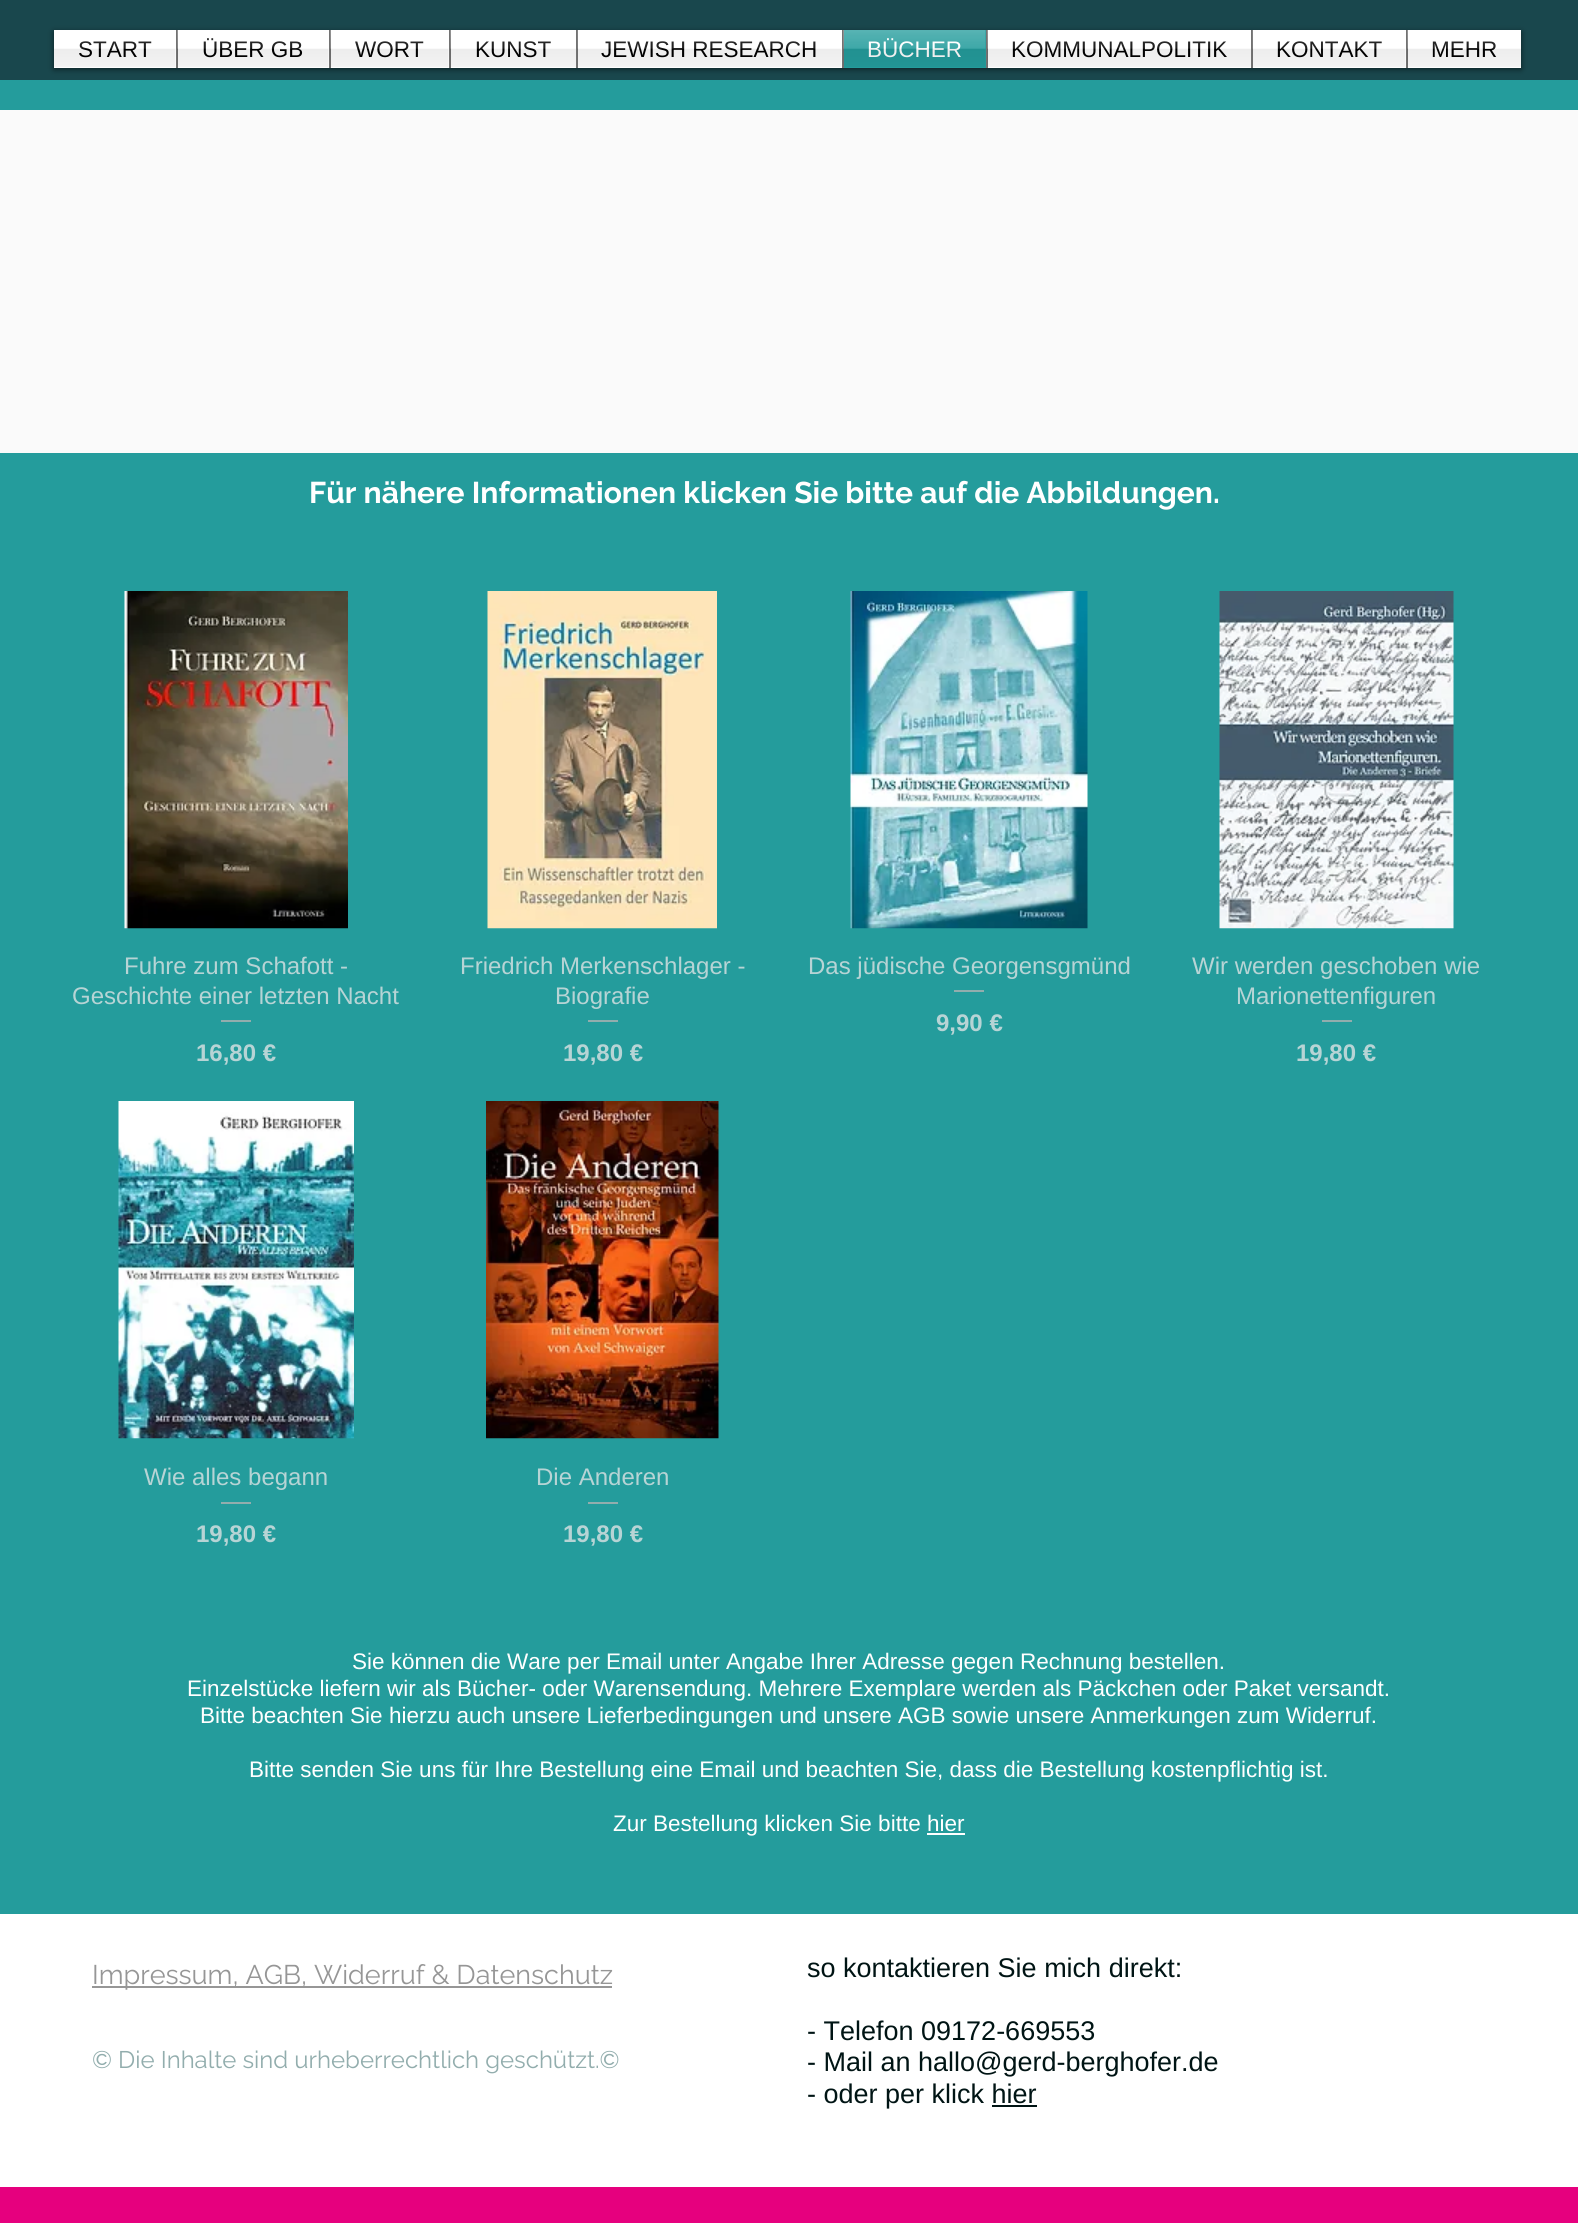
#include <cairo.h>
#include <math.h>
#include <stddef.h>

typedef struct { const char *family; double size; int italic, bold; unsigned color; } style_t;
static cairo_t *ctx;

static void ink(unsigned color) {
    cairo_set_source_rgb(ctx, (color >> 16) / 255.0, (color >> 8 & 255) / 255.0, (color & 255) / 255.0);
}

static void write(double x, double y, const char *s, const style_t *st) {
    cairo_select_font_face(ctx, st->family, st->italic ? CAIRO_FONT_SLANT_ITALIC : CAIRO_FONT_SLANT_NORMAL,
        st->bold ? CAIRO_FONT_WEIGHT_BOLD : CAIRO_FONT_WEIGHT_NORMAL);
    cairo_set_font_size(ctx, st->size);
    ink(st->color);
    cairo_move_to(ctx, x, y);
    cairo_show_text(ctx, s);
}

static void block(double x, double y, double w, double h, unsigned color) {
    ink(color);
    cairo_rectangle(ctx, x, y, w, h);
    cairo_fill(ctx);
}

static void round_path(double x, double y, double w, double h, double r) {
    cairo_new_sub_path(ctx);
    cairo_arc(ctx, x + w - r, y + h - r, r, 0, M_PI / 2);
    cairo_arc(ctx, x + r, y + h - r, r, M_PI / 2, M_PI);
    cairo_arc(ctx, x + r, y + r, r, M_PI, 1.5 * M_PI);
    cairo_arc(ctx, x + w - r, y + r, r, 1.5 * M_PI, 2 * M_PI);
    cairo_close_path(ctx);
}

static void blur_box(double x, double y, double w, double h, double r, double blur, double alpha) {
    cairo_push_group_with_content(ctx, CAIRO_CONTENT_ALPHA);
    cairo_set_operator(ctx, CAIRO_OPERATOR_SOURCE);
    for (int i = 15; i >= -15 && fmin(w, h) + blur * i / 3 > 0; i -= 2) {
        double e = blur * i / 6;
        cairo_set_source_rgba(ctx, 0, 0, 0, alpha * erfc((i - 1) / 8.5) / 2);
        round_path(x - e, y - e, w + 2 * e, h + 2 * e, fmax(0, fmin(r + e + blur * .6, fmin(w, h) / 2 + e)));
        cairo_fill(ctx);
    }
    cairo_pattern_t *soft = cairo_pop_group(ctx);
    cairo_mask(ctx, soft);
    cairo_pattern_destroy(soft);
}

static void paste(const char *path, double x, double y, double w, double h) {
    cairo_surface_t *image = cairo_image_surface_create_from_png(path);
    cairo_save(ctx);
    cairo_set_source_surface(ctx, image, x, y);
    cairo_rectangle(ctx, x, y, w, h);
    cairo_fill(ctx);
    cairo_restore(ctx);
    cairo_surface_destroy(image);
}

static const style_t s1 = {"Liberation Sans", 22.5, 0, 0, 0x000000};
static const style_t s2 = {"Liberation Sans", 22.5, 0, 0, 0xffffff};
static const style_t s3 = {"Raleway", 30, 0, 1, 0xffffff};
static const style_t s4 = {"Liberation Sans", 24, 0, 0, 0xb7d4d5};
static const style_t s5 = {"Liberation Sans", 24, 0, 1, 0xb7d4d5};
static const style_t s6 = {"Raleway", 27, 0, 0, 0x969696};
static const style_t s7 = {"Liberation Sans", 27, 0, 0, 0x001414};
static const style_t s8 = {"Raleway", 24, 0, 0, 0x92adad};

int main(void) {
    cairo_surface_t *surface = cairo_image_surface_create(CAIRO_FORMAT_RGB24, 1578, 2223);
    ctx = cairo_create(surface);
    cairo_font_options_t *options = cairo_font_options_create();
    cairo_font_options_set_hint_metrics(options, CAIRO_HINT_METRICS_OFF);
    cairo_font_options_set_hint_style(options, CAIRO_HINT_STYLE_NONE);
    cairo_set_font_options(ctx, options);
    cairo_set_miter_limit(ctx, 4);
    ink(0xe6007e);
    cairo_paint(ctx);
    block(0, 0, 1578, 80, 0x19474d);
    ink(0x000000);
    blur_box(54, 32, 1467, 37, 0, 3, 0.6);
    block(54, 30, 122, 38, 0xffffff);
    write(78, 57, "START", &s1);
    paste("pic1.png", 54, 41, 122, 26);
    block(178, 30, 151, 38, 0xffffff);
    block(176, 30, 2, 38, 0x727272);
    write(202, 57, "ÜBER GB", &s1);
    paste("pic2.png", 177, 30, 152, 37);
    block(331, 30, 118, 38, 0xffffff);
    block(329, 30, 2, 38, 0x727272);
    write(355, 57, "WORT", &s1);
    paste("pic3.png", 330, 30, 119, 37);
    block(451, 30, 125, 38, 0xffffff);
    block(449, 30, 2, 38, 0x727272);
    write(475, 57, "KUNST", &s1);
    paste("pic4.png", 450, 30, 126, 37);
    block(578, 30, 264, 38, 0xffffff);
    block(576, 30, 2, 38, 0x727272);
    write(601, 57, "JEWISH RESEARCH", &s1);
    paste("pic5.png", 577, 30, 265, 37);
    block(844, 30, 142, 38, 0x249c9c);
    block(842, 30, 2, 38, 0x727272);
    write(867, 57, "BÜCHER", &s2);
    paste("pic6.png", 843, 30, 143, 37);
    block(988, 30, 263, 38, 0xffffff);
    block(986, 30, 2, 38, 0x727272);
    write(1011, 57, "KOMMUNALPOLITIK", &s1);
    paste("pic7.png", 987, 30, 264, 37);
    block(1253, 30, 153, 38, 0xffffff);
    block(1251, 30, 2, 38, 0x727272);
    write(1276, 57, "KONTAKT", &s1);
    paste("pic8.png", 1252, 30, 154, 37);
    block(1408, 30, 113, 38, 0xffffff);
    block(1406, 30, 2, 38, 0x727272);
    write(1431, 57, "MEHR", &s1);
    paste("pic9.png", 1407, 30, 114, 37);
    block(0, 80, 1578, 1834, 0x249c9c);
    block(0, 110, 1578, 343, 0xfafafa);
    write(309, 503, "Für nähere Informationen klicken Sie bitte auf die Abbildungen.", &s3);
    paste("pic10.png", 124, 591, 224, 338);
    write(124, 974, "Fuhre zum Schafott -", &s4);
    write(72, 1004, "Geschichte einer letzten Nacht", &s4);
    block(221, 1020, 30, 2, 0x92adad);
    write(196, 1061, "16,80 €", &s5);
    paste("pic11.png", 487, 591, 230, 338);
    write(460, 974, "Friedrich Merkenschlager -", &s4);
    write(555, 1004, "Biografie", &s4);
    block(588, 1020, 30, 2, 0x92adad);
    write(563, 1061, "19,80 €", &s5);
    paste("pic12.png", 850, 591, 238, 338);
    write(808, 974, "Das jüdische Georgensgmünd", &s4);
    block(954, 990, 30, 2, 0x92adad);
    write(936, 1031, "9,90 €", &s5);
    paste("pic13.png", 1219, 591, 235, 338);
    write(1192, 974, "Wir werden geschoben wie", &s4);
    write(1236, 1004, "Marionettenfiguren", &s4);
    block(1322, 1020, 30, 2, 0x92adad);
    write(1296, 1061, "19,80 €", &s5);
    paste("pic14.png", 118, 1101, 236, 338);
    write(144, 1485, "Wie alles begann", &s4);
    block(221, 1502, 30, 2, 0x92adad);
    write(196, 1542, "19,80 €", &s5);
    paste("pic15.png", 486, 1101, 233, 338);
    write(536, 1485, "Die Anderen", &s4);
    block(588, 1502, 30, 2, 0x92adad);
    write(563, 1542, "19,80 €", &s5);
    write(352, 1669, "Sie können die Ware per Email unter Angabe Ihrer Adresse gegen Rechnung bestellen.", &s2);
    write(187, 1696, "Einzelstücke liefern wir als Bücher- oder Warensendung. Mehrere Exemplare werden als Päckchen oder Paket versandt.", &s2);
    write(200, 1723, "Bitte beachten Sie hierzu auch unsere Lieferbedingungen und unsere AGB sowie unsere Anmerkungen zum Widerruf.", &s2);
    write(249, 1777, "Bitte senden Sie uns für Ihre Bestellung eine Email und beachten Sie, dass die Bestellung kostenpflichtig ist.", &s2);
    write(613, 1831, "Zur Bestellung klicken Sie bitte hier", &s2);
    block(927, 1833, 38, 2, 0xffffff);
    block(0, 1914, 1578, 273, 0xffffff);
    block(92, 1986, 520, 2, 0x969696);
    write(92, 1984, "Impressum, AGB, Widerruf & Datenschutz", &s6);
    write(807, 1977, "so kontaktieren Sie mich direkt:", &s7);
    write(807, 2040, "- Telefon 09172-669553", &s7);
    write(807, 2071, "- Mail an hallo@gerd-berghofer.de", &s7);
    write(807, 2103, "- oder per klick hier", &s7);
    block(992, 2105, 45, 2, 0x001414);
    write(92, 2068, "© Die Inhalte sind urheberrechtlich geschützt.©", &s8);
    cairo_surface_write_to_png(surface, "screenshot.png");
    cairo_font_options_destroy(options);
    cairo_destroy(ctx);
    cairo_surface_destroy(surface);
    return 0;
}
